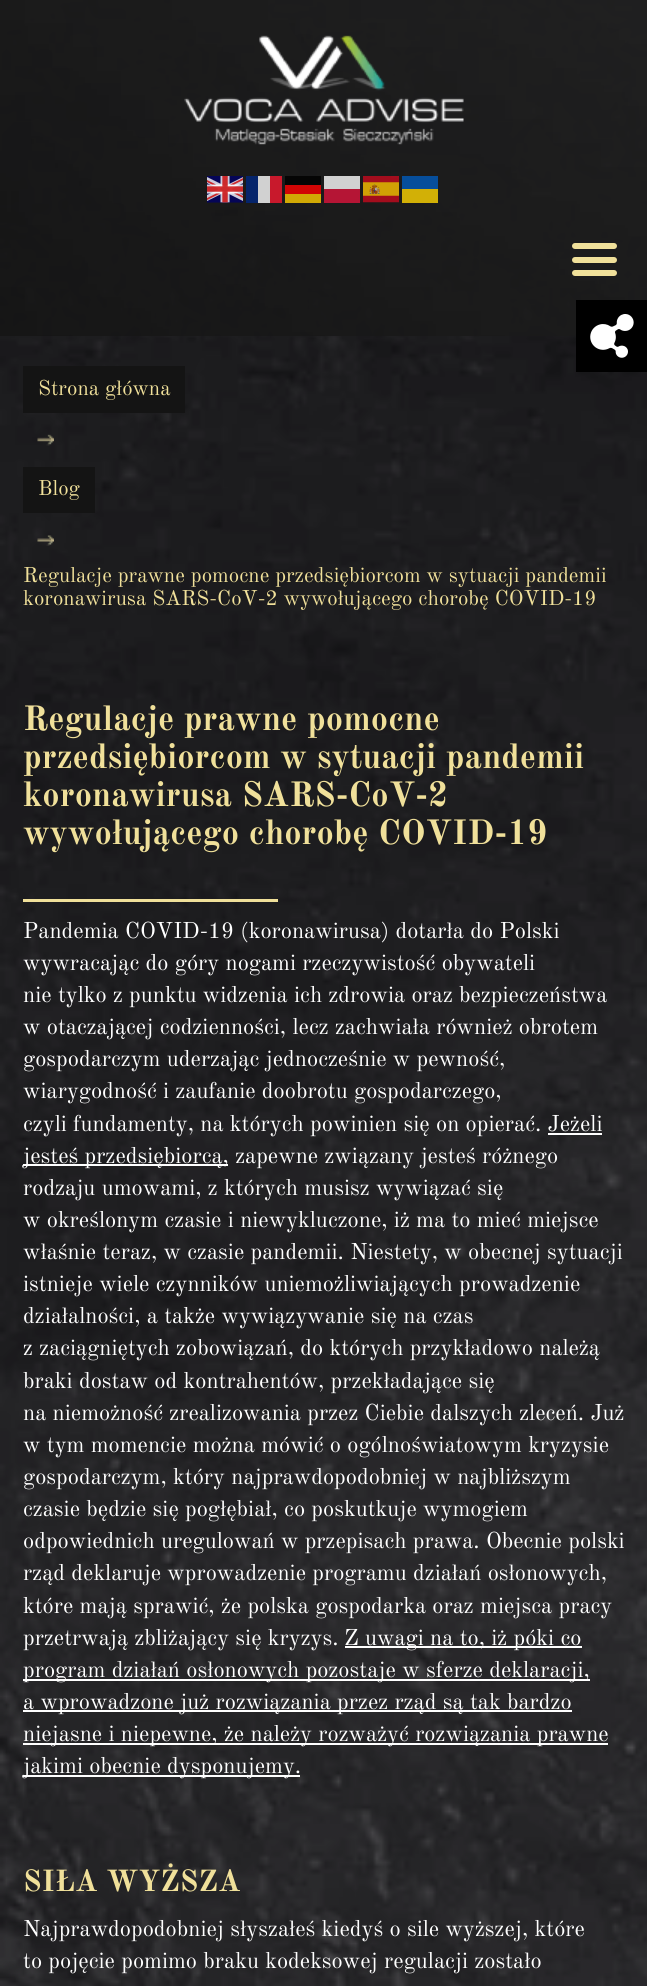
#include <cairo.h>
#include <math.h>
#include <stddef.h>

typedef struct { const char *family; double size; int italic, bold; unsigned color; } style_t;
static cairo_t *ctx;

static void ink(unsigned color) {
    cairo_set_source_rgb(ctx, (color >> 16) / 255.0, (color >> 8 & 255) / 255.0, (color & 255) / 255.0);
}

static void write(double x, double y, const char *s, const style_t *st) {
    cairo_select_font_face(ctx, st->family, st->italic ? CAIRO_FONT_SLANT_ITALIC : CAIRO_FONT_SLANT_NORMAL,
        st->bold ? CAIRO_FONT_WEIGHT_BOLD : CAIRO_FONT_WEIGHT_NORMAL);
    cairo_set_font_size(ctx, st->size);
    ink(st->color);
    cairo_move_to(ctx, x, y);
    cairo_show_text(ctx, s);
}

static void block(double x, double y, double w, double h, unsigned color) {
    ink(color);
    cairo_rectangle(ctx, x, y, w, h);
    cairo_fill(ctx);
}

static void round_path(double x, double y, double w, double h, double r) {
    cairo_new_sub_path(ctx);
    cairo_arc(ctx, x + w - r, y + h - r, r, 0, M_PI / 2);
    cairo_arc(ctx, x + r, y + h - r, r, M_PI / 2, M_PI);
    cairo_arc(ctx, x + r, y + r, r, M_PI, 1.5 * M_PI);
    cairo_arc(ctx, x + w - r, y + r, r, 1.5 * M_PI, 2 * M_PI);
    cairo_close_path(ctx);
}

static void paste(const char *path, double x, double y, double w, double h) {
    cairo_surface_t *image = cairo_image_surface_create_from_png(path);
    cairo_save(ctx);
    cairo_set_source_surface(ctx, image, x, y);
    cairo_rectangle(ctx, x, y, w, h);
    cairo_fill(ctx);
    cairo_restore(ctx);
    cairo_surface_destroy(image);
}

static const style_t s1 = {"Old Standard TT", 21, 0, 0, 0xf0e09a};
static const style_t s2 = {"Old Standard TT", 34.5, 0, 1, 0xf0e09a};
static const style_t s3 = {"Old Standard TT", 22.5, 0, 0, 0xffffff};
static const style_t s4 = {"Old Standard TT", 30, 0, 1, 0xf0e09a};

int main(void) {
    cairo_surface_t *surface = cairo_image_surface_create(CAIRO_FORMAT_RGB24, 647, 1986);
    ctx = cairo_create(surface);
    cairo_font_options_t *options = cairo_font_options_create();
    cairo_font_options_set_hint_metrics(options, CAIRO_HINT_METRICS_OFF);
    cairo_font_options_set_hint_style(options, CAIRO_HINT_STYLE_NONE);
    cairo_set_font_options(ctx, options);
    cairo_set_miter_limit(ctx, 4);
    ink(0xffffff);
    cairo_paint(ctx);
    paste("pic1.png", 0, 0, 647, 1986);
    cairo_set_source_rgba(ctx, 0, 0, 0, 0.8);
    cairo_rectangle(ctx, 0, 0, 647, 336);
    cairo_fill(ctx);
    paste("pic2.png", 0, 0, 647, 336);
    paste("pic3.png", 184, 35, 280, 110);
    paste("pic4.png", 207, 176, 36, 27);
    block(246, 176, 12, 27, 0x05246b);
    block(258, 176, 12, 27, 0xd1d1d1);
    block(270, 176, 12, 27, 0xc8192c);
    block(285, 176, 36, 9, 0x050505);
    block(324, 176, 36, 13, 0xd1d1d1);
    paste("pic5.png", 363, 176, 36, 27);
    block(402, 176, 36, 13, 0x064e9b);
    block(285, 185, 36, 9, 0xd10505);
    block(324, 189, 36, 14, 0xb51535);
    block(402, 189, 36, 14, 0xd2b006);
    block(285, 194, 36, 9, 0xd1a905);
    ink(0xf0e09a);
    round_path(572, 243, 45, 6, 3);
    cairo_fill(ctx);
    round_path(572, 257, 45, 6, 3);
    cairo_fill(ctx);
    round_path(572, 270, 45, 6, 3);
    cairo_fill(ctx);
    block(576, 300, 71, 72, 0x000000);
    paste("pic6.png", 590, 314, 44, 44);
    block(23, 366, 162, 47, 0x141414);
    write(38, 395, "Strona główna", &s1);
    paste("pic7.png", 37, 434, 17, 12);
    block(23, 467, 72, 46, 0x141414);
    write(38, 495, "Blog", &s1);
    paste("pic8.png", 37, 535, 17, 11);
    write(23, 582, "Regulacje prawne pomocne przedsiębiorcom w sytuacji pandemii", &s1);
    write(23, 605, "koronawirusa SARS-CoV-2 wywołującego chorobę COVID-19", &s1);
    write(23, 730, "Regulacje prawne pomocne", &s2);
    write(23, 768, "przedsiębiorcom w sytuacji pandemii", &s2);
    write(23, 806, "koronawirusa SARS-CoV-2", &s2);
    write(23, 844, "wywołującego chorobę COVID-19", &s2);
    block(23, 899, 255, 3, 0xf0e09a);
    write(23, 938, "Pandemia COVID-19 (koronawirusa) dotarła do Polski", &s3);
    write(23, 970, "wywracając do góry nogami rzeczywistość obywateli", &s3);
    write(23, 1002, "nie tylko z punktu widzenia ich zdrowia oraz bezpieczeństwa", &s3);
    write(23, 1034, "w otaczającej codzienności, lecz zachwiała również obrotem", &s3);
    write(23, 1066, "gospodarczym uderzając jednocześnie w pewność,", &s3);
    write(23, 1098, "wiarygodność i zaufanie doobrotu gospodarczego,", &s3);
    write(23, 1131, "czyli fundamenty, na których powinien się on opierać. Jeżeli", &s3);
    block(23, 1164, 205, 2, 0xffffff);
    write(23, 1163, "jesteś przedsiębiorcą, zapewne związany jesteś różnego", &s3);
    block(548, 1133, 54, 2, 0xffffff);
    write(23, 1195, "rodzaju umowami, z których musisz wywiązać się", &s3);
    write(23, 1227, "w określonym czasie i niewykluczone, iż ma to mieć miejsce", &s3);
    write(23, 1259, "właśnie teraz, w czasie pandemii. Niestety, w obecnej sytuacji", &s3);
    write(23, 1291, "istnieje wiele czynników uniemożliwiających prowadzenie", &s3);
    write(23, 1323, "działalności, a także wywiązywanie się na czas", &s3);
    write(23, 1355, "z zaciągniętych zobowiązań, do których przykładowo należą", &s3);
    write(23, 1388, "braki dostaw od kontrahentów, przekładające się", &s3);
    write(23, 1420, "na niemożność zrealizowania przez Ciebie dalszych zleceń. Już", &s3);
    write(23, 1452, "w tym momencie można mówić o ogólnoświatowym kryzysie", &s3);
    write(23, 1484, "gospodarczym, który najprawdopodobniej w najbliższym", &s3);
    write(23, 1516, "czasie będzie się pogłębiał, co poskutkuje wymogiem", &s3);
    write(23, 1548, "odpowiednich uregulowań w przepisach prawa. Obecnie polski", &s3);
    write(23, 1580, "rząd deklaruje wprowadzenie programu działań osłonowych,", &s3);
    write(23, 1613, "które mają sprawić, że polska gospodarka oraz miejsca pracy", &s3);
    write(23, 1645, "przetrwają zbliżający się kryzys.", &s3);
    block(345, 1646, 237, 2, 0xffffff);
    write(344, 1645, "Z uwagi na to, iż póki co", &s3);
    block(23, 1679, 567, 2, 0xffffff);
    write(23, 1677, "program działań osłonowych pozostaje w sferze deklaracji,", &s3);
    block(23, 1710, 549, 2, 0xffffff);
    write(23, 1709, "a wprowadzone już rozwiązania przez rząd są tak bardzo", &s3);
    block(23, 1743, 585, 2, 0xffffff);
    write(23, 1741, "niejasne i niepewne, że należy rozważyć rozwiązania prawne", &s3);
    block(23, 1775, 277, 2, 0xffffff);
    write(23, 1773, "jakimi obecnie dysponujemy.", &s3);
    write(23, 1891, "SIŁA WYŻSZA", &s4);
    write(23, 1936, "Najprawdopodobniej słyszałeś kiedyś o sile wyższej, które", &s3);
    write(23, 1968, "to pojęcie pomimo braku kodeksowej regulacji zostało", &s3);
    cairo_surface_write_to_png(surface, "screenshot.png");
    cairo_font_options_destroy(options);
    cairo_destroy(ctx);
    cairo_surface_destroy(surface);
    return 0;
}
